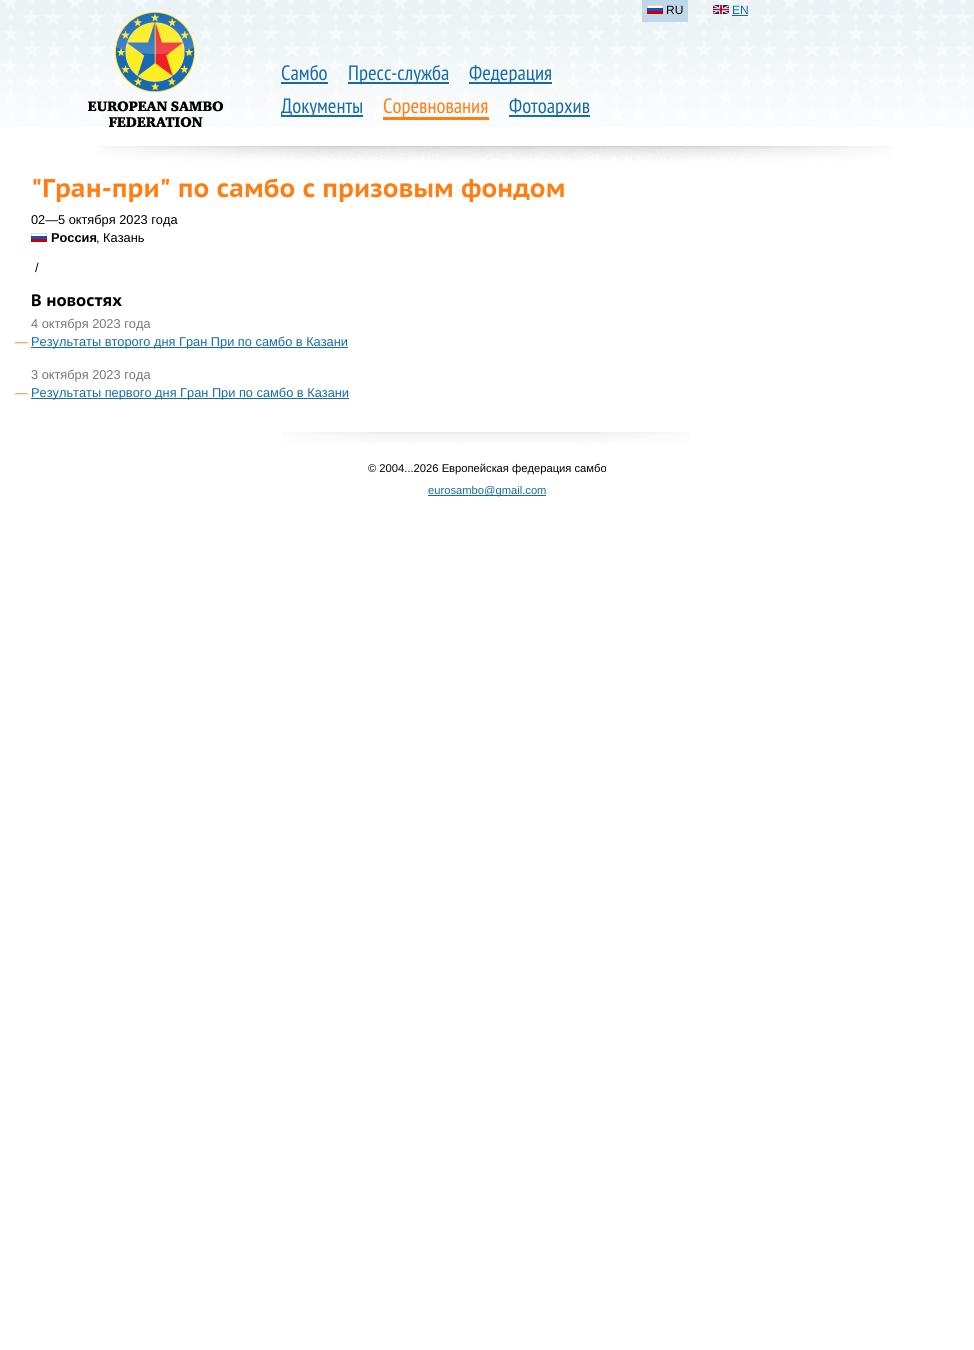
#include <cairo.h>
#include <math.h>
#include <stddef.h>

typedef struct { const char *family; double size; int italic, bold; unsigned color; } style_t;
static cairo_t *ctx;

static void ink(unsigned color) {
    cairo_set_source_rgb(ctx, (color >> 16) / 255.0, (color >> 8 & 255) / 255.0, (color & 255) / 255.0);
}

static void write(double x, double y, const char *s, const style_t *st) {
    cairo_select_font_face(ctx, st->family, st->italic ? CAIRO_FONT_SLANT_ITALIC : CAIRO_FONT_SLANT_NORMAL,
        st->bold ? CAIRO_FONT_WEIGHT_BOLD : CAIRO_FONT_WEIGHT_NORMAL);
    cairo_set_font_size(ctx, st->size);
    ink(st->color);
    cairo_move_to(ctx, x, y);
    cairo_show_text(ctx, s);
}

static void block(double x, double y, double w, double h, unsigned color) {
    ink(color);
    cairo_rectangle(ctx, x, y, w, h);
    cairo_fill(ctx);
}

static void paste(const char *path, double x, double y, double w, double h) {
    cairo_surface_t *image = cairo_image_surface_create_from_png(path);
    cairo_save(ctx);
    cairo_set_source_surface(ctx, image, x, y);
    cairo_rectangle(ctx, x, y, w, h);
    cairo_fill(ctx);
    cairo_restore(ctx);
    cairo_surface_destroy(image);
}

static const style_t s1 = {"Liberation Sans", 12, 0, 0, 0x000000};
static const style_t s2 = {"Liberation Sans", 12, 0, 0, 0x166ba6};
static const style_t s3 = {"PT Sans Narrow", 20.75, 0, 0, 0x166ba6};
static const style_t s4 = {"PT Sans Narrow", 20.75, 0, 0, 0xff7d11};
static const style_t s5 = {"PT Sans Caption", 25.6, 0, 1, 0xff7d11};
static const style_t s6 = {"Liberation Sans", 12.8, 0, 0, 0x000000};
static const style_t s7 = {"Liberation Sans", 12.8, 0, 1, 0x000000};
static const style_t s8 = {"PT Sans Caption", 16.5, 0, 1, 0x000000};
static const style_t s9 = {"Liberation Sans", 12.8, 0, 0, 0x777777};
static const style_t s10 = {"Liberation Sans", 12.8, 0, 0, 0xff7d11};
static const style_t s11 = {"Liberation Sans", 12.8, 0, 0, 0x166ba6};
static const style_t s12 = {"Liberation Sans", 11.2, 0, 0, 0x000000};
static const style_t s13 = {"Liberation Sans", 11.2, 0, 0, 0x166ba6};

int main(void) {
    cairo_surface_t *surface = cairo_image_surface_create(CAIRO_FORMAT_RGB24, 974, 1350);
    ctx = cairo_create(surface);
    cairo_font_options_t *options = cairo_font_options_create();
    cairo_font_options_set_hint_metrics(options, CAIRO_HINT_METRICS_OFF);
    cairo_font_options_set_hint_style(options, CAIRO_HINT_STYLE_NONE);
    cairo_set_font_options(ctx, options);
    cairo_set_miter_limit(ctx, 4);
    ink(0xffffff);
    cairo_paint(ctx);
    paste("pic1.png", 0, 0, 974, 127);
    paste("pic2.png", 96, 146, 796, 17);
    block(642, 0, 46, 22, 0xc0d7e9);
    paste("pic3.png", 647, 5, 16, 9);
    write(666, 14, "RU", &s1);
    paste("pic4.png", 713, 5, 16, 9);
    write(732, 14, "EN", &s2);
    block(732, 15, 16, 1, 0x166ba6);
    paste("pic5.png", 88, 12, 135, 115);
    write(281, 80, "Самбо", &s3);
    block(281, 82, 47, 2, 0x166ba6);
    block(348, 82, 101, 2, 0x166ba6);
    write(348, 80, "Пресс-служба", &s3);
    block(469, 82, 83, 2, 0x166ba6);
    write(469, 80, "Федерация", &s3);
    block(281, 115, 82, 2, 0x166ba6);
    write(281, 113, "Документы", &s3);
    block(383, 117, 106, 3, 0xff7d11);
    write(383, 113, "Соревнования", &s4);
    block(509, 115, 81, 2, 0x166ba6);
    write(509, 113, "Фотоархив", &s3);
    write(31, 197, "\"Гран-при\" по самбо с призовым фондом", &s5);
    write(31, 224, "02—5 октября 2023 года", &s6);
    paste("pic3.png", 31, 233, 16, 9);
    write(51, 242, "Россия", &s7);
    write(96, 242, ", Казань", &s6);
    write(35, 272, "/", &s6);
    write(31, 306, "В новостях", &s8);
    write(31, 328, "4 октября 2023 года", &s9);
    write(15, 346, "—", &s10);
    block(31, 347, 317, 1, 0x166ba6);
    write(31, 346, "Результаты второго дня Гран При по самбо в Казани", &s11);
    write(31, 379, "3 октября 2023 года", &s9);
    write(15, 397, "—", &s10);
    block(31, 398, 318, 1, 0x166ba6);
    write(31, 397, "Результаты первого дня Гран При по самбо в Казани", &s11);
    paste("pic6.png", 282, 432, 409, 12);
    write(368, 472, "© 2004...2026 Европейская федерация самбо", &s12);
    block(428, 495, 118, 1, 0x166ba6);
    write(428, 494, "eurosambo@gmail.com", &s13);
    cairo_surface_write_to_png(surface, "screenshot.png");
    cairo_font_options_destroy(options);
    cairo_destroy(ctx);
    cairo_surface_destroy(surface);
    return 0;
}
